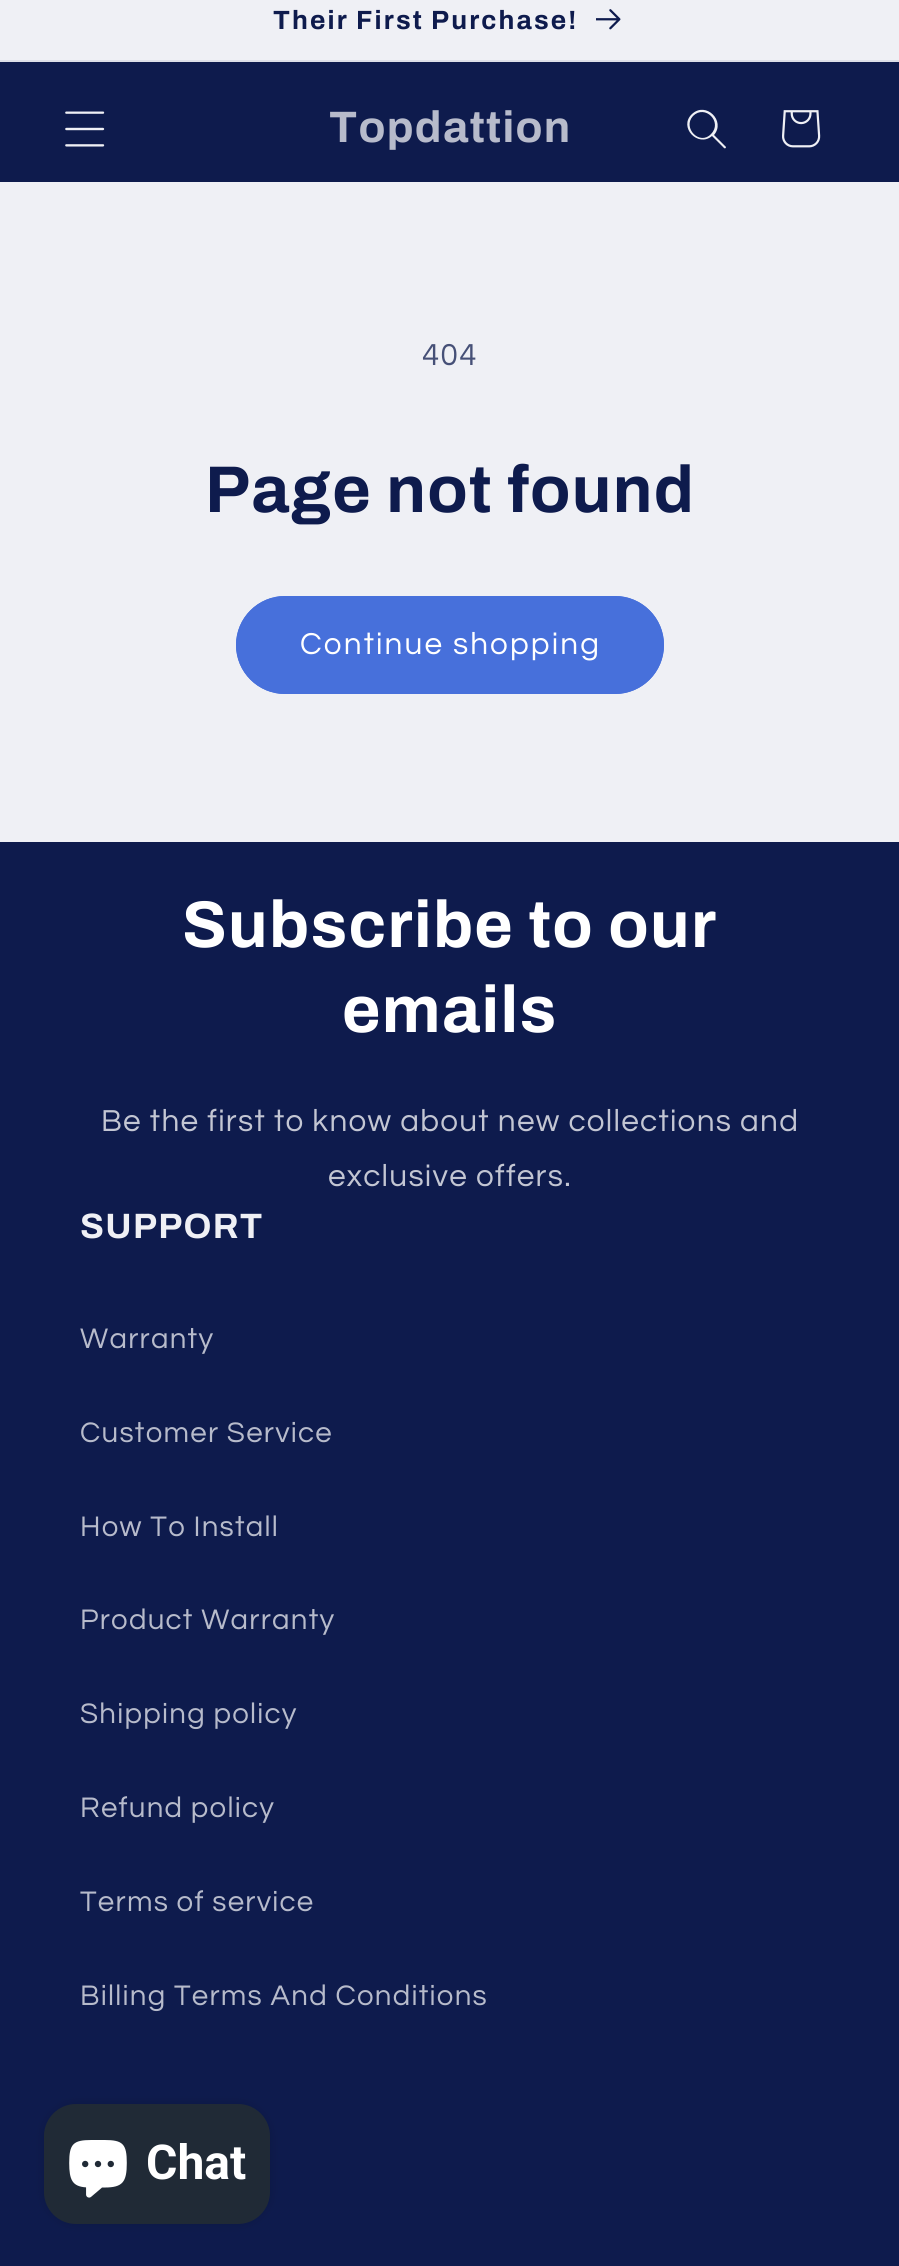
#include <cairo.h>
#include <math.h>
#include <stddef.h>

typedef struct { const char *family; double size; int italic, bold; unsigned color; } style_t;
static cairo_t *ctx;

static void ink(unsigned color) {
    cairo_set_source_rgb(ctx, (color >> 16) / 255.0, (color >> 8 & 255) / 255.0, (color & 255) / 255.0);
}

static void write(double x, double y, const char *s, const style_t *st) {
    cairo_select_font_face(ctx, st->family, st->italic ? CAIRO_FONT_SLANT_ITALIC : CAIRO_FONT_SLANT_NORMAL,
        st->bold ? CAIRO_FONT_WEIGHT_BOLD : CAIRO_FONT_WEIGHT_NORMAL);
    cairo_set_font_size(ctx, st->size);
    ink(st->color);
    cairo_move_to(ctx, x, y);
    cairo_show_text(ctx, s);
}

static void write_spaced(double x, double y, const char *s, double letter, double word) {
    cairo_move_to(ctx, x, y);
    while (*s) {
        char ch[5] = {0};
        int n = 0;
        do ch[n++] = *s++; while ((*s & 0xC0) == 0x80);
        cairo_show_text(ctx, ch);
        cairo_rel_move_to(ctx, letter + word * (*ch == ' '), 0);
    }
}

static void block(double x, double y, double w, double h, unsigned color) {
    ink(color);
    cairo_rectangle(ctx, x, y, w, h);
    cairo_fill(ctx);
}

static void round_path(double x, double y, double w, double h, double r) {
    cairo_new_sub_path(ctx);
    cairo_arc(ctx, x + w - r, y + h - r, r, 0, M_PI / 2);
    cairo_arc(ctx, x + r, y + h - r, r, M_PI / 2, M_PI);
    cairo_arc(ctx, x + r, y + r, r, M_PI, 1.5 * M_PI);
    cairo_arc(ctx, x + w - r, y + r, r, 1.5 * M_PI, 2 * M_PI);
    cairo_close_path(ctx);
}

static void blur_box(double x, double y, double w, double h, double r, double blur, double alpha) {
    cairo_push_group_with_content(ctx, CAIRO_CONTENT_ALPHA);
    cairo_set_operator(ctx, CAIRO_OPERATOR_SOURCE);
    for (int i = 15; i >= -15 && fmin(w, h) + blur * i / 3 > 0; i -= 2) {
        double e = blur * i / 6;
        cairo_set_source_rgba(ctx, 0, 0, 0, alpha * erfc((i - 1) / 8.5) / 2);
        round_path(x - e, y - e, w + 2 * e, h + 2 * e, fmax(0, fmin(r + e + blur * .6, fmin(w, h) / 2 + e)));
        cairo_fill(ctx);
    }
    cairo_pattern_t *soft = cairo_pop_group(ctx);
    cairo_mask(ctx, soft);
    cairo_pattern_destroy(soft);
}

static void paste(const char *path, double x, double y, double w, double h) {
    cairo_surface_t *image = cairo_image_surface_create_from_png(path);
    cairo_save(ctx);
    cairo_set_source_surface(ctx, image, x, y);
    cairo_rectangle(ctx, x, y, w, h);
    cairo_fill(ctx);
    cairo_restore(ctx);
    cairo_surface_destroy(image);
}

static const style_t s1 = {"Roboto", 48, 0, 1, 0xffffff};

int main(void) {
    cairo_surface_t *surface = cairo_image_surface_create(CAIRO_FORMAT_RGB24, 899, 2266);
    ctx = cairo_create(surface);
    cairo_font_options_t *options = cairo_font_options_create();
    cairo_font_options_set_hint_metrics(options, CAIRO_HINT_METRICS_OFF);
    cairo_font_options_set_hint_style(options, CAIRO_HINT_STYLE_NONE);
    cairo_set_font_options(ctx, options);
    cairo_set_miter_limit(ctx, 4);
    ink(0xeff0f5);
    cairo_paint(ctx);
    block(0, 60, 899, 2, 0xdddfe8);
    cairo_select_font_face(ctx, "Archivo", CAIRO_FONT_SLANT_NORMAL, CAIRO_FONT_WEIGHT_BOLD);
    cairo_set_font_size(ctx, 26.4);
    ink(0x0e1b4d);
    write_spaced(273, 29, "Their First Purchase!", 2.1, 0);
    paste("pic1.png", 596, 9, 25, 21);
    block(0, 62, 899, 120, 0x0e1b4d);
    paste("pic2.png", 65, 111, 40, 36);
    cairo_set_font_size(ctx, 44);
    ink(0xb7bbcb);
    write_spaced(329, 142, "Topdattion", 1.3, 0);
    ink(0xeff0f5);
    cairo_set_fill_rule(ctx, CAIRO_FILL_RULE_EVEN_ODD);
    cairo_new_path(ctx);
    cairo_move_to(ctx, 711, 134);
    cairo_curve_to(ctx, 700, 146, 682, 128, 693, 116);
    cairo_curve_to(ctx, 705, 104, 723, 122, 711, 134);
    cairo_move_to(ctx, 712, 136);
    cairo_curve_to(ctx, 698, 148, 678, 127, 692, 114);
    cairo_curve_to(ctx, 706, 101, 726, 121, 714, 135);
    cairo_line_to(ctx, 726, 147);
    cairo_curve_to(ctx, 726, 148, 725, 149, 724, 148);
    cairo_close_path(ctx);
    cairo_fill(ctx);
    paste("pic3.png", 782, 110, 39, 38);
    cairo_select_font_face(ctx, "Questrial", CAIRO_FONT_SLANT_NORMAL, CAIRO_FONT_WEIGHT_NORMAL);
    cairo_set_font_size(ctx, 31.5);
    ink(0x465077);
    write_spaced(422, 365, "404", 1.25, 0);
    cairo_select_font_face(ctx, "Archivo", CAIRO_FONT_SLANT_NORMAL, CAIRO_FONT_WEIGHT_BOLD);
    cairo_set_font_size(ctx, 66);
    ink(0x0e1b4d);
    write_spaced(205, 512, "Page not found", 1.3, 0);
    ink(0x4770db);
    round_path(236, 596, 428, 98, 49);
    cairo_fill(ctx);
    round_path(237, 597, 426, 96, 48);
    cairo_stroke(ctx);
    cairo_select_font_face(ctx, "Questrial", CAIRO_FONT_SLANT_NORMAL, CAIRO_FONT_WEIGHT_NORMAL);
    cairo_set_font_size(ctx, 31.5);
    ink(0xffffff);
    write_spaced(300, 654, "Continue shopping", 2.1, 0);
    block(0, 842, 899, 1424, 0x0e1b4d);
    cairo_select_font_face(ctx, "Archivo", CAIRO_FONT_SLANT_NORMAL, CAIRO_FONT_WEIGHT_BOLD);
    cairo_set_font_size(ctx, 66);
    ink(0xffffff);
    write_spaced(182, 947, "Subscribe to our", 1.3, 0);
    write_spaced(342, 1032, "emails", 1.3, 0);
    cairo_select_font_face(ctx, "Questrial", CAIRO_FONT_SLANT_NORMAL, CAIRO_FONT_WEIGHT_NORMAL);
    cairo_set_font_size(ctx, 31.5);
    ink(0xc3c6d3);
    write_spaced(101, 1131, "Be the first to know about new collections and", 1.25, 0);
    write_spaced(328, 1186, "exclusive offers.", 1.25, 0);
    cairo_select_font_face(ctx, "Archivo", CAIRO_FONT_SLANT_NORMAL, CAIRO_FONT_WEIGHT_BOLD);
    cairo_set_font_size(ctx, 35.25);
    ink(0xeff0f5);
    write_spaced(80, 1238, "SUPPORT", 1.3, 0);
    cairo_select_font_face(ctx, "Questrial", CAIRO_FONT_SLANT_NORMAL, CAIRO_FONT_WEIGHT_NORMAL);
    cairo_set_font_size(ctx, 29.4);
    ink(0xb7bbcb);
    write_spaced(80, 1348, "Warranty", 1.25, 0);
    write_spaced(80, 1442, "Customer Service", 1.25, 0);
    write_spaced(80, 1536, "How To Install", 1.25, 0);
    write_spaced(80, 1629, "Product Warranty", 1.25, 0);
    write_spaced(80, 1723, "Shipping policy", 1.25, 0);
    write_spaced(80, 1817, "Refund policy", 1.25, 0);
    write_spaced(80, 1911, "Terms of service", 1.25, 0);
    write_spaced(80, 2005, "Billing Terms And Conditions", 1.25, 0);
    ink(0x000000);
    blur_box(44, 2104, 226, 120, 32, 5, 0.15);
    ink(0x202a36);
    round_path(44, 2104, 226, 120, 32);
    cairo_fill(ctx);
    paste("pic4.png", 69, 2140, 58, 58);
    write(146, 2179, "Chat", &s1);
    cairo_surface_write_to_png(surface, "screenshot.png");
    cairo_font_options_destroy(options);
    cairo_destroy(ctx);
    cairo_surface_destroy(surface);
    return 0;
}
